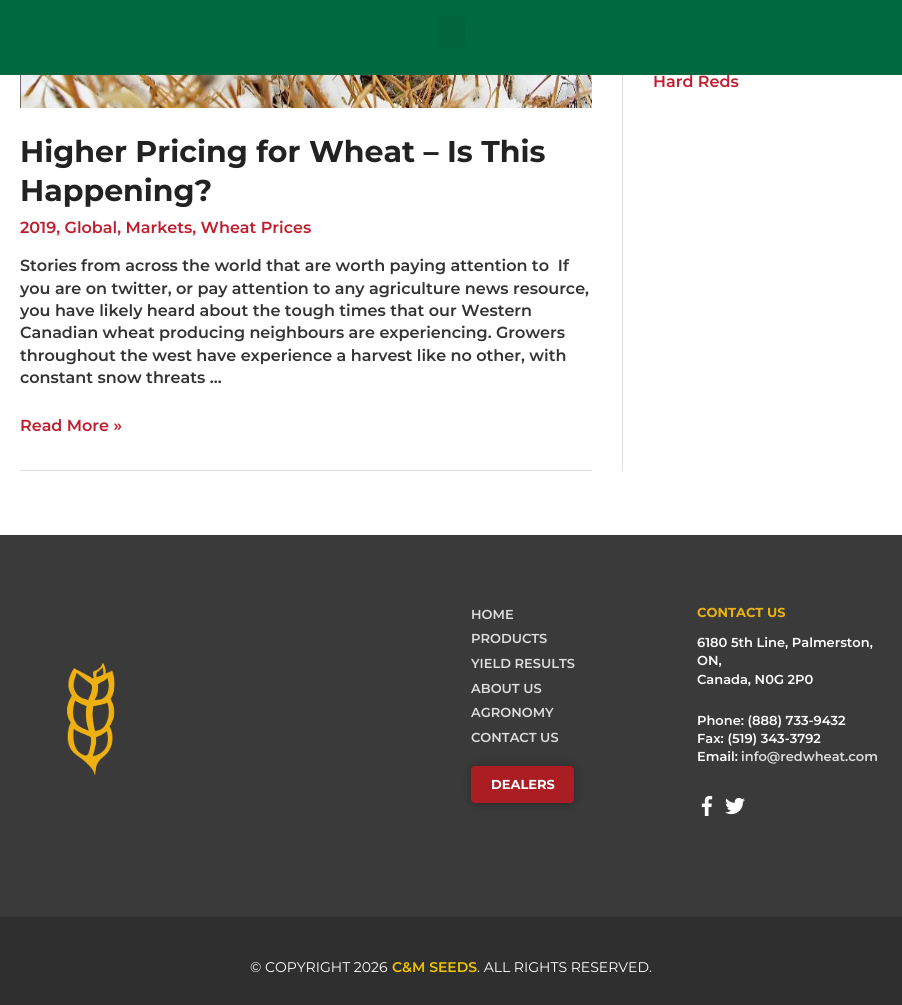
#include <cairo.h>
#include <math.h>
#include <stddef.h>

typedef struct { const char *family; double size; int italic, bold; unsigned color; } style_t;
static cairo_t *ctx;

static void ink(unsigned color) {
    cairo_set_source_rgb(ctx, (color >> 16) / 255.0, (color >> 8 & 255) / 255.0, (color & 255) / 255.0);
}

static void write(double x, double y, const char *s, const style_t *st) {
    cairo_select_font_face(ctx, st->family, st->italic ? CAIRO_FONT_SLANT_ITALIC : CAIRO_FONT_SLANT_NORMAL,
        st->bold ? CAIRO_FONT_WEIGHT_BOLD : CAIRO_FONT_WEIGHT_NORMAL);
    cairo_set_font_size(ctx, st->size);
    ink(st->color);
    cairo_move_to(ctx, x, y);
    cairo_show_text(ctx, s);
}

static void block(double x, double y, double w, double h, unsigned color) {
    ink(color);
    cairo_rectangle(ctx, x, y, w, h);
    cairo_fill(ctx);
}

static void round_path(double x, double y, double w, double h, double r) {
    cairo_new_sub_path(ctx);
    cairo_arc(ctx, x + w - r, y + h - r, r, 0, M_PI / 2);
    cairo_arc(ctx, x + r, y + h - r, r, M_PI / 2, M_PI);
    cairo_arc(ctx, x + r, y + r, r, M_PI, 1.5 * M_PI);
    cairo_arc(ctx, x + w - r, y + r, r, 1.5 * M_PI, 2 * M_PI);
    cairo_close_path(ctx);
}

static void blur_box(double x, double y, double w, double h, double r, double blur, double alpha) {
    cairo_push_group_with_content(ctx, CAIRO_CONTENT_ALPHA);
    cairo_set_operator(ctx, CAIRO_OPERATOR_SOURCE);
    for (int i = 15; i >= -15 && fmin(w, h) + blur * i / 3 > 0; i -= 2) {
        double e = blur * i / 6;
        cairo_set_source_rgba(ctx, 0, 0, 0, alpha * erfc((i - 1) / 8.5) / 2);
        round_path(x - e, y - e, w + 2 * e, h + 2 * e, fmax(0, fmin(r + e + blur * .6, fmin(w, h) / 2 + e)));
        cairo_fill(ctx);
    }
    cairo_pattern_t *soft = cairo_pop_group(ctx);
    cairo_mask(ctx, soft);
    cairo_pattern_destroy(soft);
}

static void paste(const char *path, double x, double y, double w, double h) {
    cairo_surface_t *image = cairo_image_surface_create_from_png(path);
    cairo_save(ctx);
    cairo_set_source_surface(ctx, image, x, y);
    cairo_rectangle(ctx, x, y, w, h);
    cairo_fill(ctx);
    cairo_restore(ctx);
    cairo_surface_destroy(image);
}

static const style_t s1 = {"Montserrat SemiBold", 16, 0, 0, 0xbf1e2e};
static const style_t s2 = {"Montserrat", 30, 0, 1, 0x222222};
static const style_t s3 = {"Montserrat SemiBold", 16, 0, 0, 0x333333};
static const style_t s4 = {"Montserrat SemiBold", 13, 0, 0, 0xdddddd};
static const style_t s5 = {"Montserrat", 13, 0, 1, 0xffffff};
static const style_t s6 = {"Montserrat", 13, 0, 1, 0xe9b111};
static const style_t s7 = {"Montserrat SemiBold", 13, 0, 0, 0xffffff};
static const style_t s8 = {"Montserrat", 14, 0, 0, 0xffffff};
static const style_t s9 = {"Montserrat SemiBold", 14, 0, 0, 0xeec400};

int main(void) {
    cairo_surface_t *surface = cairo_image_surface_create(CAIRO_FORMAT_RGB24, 902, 1005);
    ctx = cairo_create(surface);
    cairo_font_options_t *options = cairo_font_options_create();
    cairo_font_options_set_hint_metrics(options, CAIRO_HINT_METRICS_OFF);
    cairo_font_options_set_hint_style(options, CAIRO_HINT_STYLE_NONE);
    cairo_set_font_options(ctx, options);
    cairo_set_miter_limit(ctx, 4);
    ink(0xffffff);
    cairo_paint(ctx);
    block(0, 0, 902, 75, 0x006940);
    ink(0x00643d);
    round_path(437, 16, 28, 33, 3);
    cairo_fill(ctx);
    write(653, 87, "Hard Reds", &s1);
    block(622, 75, 1, 396, 0xdddddd);
    block(20, 470, 572, 1, 0xdddddd);
    paste("pic1.png", 20, 75, 572, 33);
    write(20, 162, "Higher Pricing for Wheat – Is This", &s2);
    write(20, 201, "Happening?", &s2);
    write(20, 233, "2019, Global, Markets, Wheat Prices", &s1);
    write(20, 271, "Stories from across the world that are worth paying attention to  If", &s3);
    write(20, 294, "you are on twitter, or pay attention to any agriculture news resource,", &s3);
    write(20, 316, "you have likely heard about the tough times that our Western", &s3);
    write(20, 338, "Canadian wheat producing neighbours are experiencing. Growers", &s3);
    write(20, 361, "throughout the west have experience a harvest like no other, with", &s3);
    write(20, 383, "constant snow threats …", &s3);
    write(20, 431, "Read More »", &s1);
    block(0, 535, 902, 382, 0x3a3a3a);
    paste("pic2.png", 67, 663, 48, 112);
    write(471, 619, "HOME", &s4);
    write(471, 643, "PRODUCTS", &s4);
    write(471, 668, "YIELD RESULTS", &s4);
    write(471, 693, "ABOUT US", &s4);
    write(471, 717, "AGRONOMY", &s4);
    write(471, 742, "CONTACT US", &s4);
    ink(0x000000);
    blur_box(471, 766, 103, 37, 4, 5, 0.3);
    ink(0xaa1d23);
    round_path(471, 766, 103, 37, 4);
    cairo_fill(ctx);
    write(491, 789, "DEALERS", &s5);
    write(697, 617, "CONTACT US", &s6);
    write(697, 647, "6180 5th Line, Palmerston,", &s7);
    write(697, 665, "ON,", &s7);
    write(697, 684, "Canada, N0G 2P0", &s7);
    write(697, 725, "Phone: (888) 733-9432", &s7);
    write(697, 743, "Fax: (519) 343-3792", &s7);
    write(697, 761, "Email:", &s7);
    write(741, 761, "info@redwheat.com", &s4);
    paste("pic3.png", 701, 796, 12, 20);
    paste("pic4.png", 725, 797, 20, 18);
    block(0, 917, 902, 88, 0x2f2f2f);
    write(250, 972, "© COPYRIGHT 2026", &s8);
    write(392, 972, "C&M SEEDS", &s9);
    write(477, 972, ". ALL RIGHTS RESERVED.", &s8);
    cairo_surface_write_to_png(surface, "screenshot.png");
    cairo_font_options_destroy(options);
    cairo_destroy(ctx);
    cairo_surface_destroy(surface);
    return 0;
}
